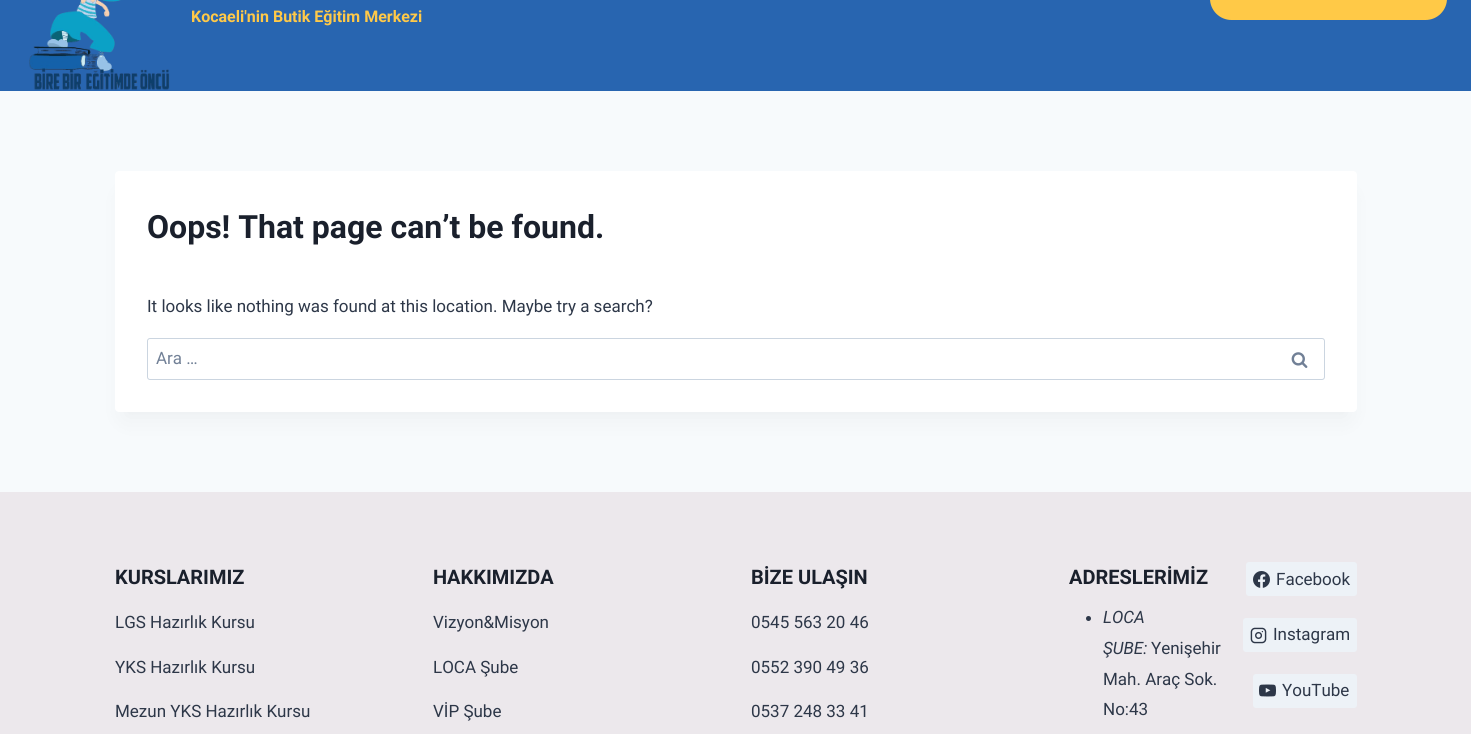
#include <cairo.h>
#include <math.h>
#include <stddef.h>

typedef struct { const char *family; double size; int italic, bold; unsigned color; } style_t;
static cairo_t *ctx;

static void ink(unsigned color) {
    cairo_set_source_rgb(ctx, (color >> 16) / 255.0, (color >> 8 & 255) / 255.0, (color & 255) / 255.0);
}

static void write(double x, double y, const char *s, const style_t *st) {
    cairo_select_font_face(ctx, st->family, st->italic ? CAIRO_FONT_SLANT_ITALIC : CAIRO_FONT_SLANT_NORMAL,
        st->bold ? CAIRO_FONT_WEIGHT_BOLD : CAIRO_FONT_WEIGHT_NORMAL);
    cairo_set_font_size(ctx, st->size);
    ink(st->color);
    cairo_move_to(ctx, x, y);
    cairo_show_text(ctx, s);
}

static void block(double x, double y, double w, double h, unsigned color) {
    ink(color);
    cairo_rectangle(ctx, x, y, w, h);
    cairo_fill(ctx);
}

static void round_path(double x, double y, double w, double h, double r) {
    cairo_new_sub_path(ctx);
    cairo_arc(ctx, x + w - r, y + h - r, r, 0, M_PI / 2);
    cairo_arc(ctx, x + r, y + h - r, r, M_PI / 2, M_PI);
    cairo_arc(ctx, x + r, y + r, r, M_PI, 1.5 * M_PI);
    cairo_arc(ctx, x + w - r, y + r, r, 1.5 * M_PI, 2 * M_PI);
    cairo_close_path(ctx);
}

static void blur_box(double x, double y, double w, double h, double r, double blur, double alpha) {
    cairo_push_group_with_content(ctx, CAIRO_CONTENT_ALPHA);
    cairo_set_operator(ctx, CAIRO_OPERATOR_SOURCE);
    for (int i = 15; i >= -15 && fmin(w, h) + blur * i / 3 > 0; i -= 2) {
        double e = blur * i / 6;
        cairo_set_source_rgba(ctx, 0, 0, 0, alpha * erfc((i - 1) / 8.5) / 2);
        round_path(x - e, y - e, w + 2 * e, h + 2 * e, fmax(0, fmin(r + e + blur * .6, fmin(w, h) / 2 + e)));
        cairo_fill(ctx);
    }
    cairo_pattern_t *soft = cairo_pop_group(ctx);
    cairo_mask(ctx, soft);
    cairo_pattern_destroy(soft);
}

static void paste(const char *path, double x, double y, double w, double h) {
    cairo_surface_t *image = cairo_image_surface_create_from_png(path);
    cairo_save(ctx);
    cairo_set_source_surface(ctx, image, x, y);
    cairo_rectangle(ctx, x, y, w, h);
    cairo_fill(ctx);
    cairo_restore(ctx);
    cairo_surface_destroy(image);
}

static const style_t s1 = {"Roboto", 16, 0, 1, 0xffc948};
static const style_t s2 = {"Roboto", 32, 0, 1, 0x1a202c};
static const style_t s3 = {"Roboto", 17, 0, 0, 0x2d3748};
static const style_t s4 = {"Roboto", 17, 0, 0, 0x718096};
static const style_t s5 = {"Roboto", 20, 0, 1, 0x1a202c};
static const style_t s6 = {"Roboto", 17, 1, 0, 0x2d3748};

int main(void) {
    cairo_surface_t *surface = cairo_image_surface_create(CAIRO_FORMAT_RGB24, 1471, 734);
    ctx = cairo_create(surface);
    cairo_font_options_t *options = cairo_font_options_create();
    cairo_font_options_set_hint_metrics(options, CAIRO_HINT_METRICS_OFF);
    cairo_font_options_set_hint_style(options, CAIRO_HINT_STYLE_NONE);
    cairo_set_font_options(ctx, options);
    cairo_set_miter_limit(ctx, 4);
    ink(0xf7fafc);
    cairo_paint(ctx);
    block(0, 0, 1471, 91, 0x2865b0);
    paste("pic1.png", 29, 0, 141, 90);
    write(191, 22, "Kocaeli'nin Butik Eğitim Merkezi", &s1);
    ink(0xffc947);
    round_path(1210, -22, 237, 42, 21.5);
    cairo_fill(ctx);
    ink(0x000000);
    blur_box(125, 196, 1222, 221, 0, 12.5, 0.05);
    ink(0xffffff);
    round_path(115, 171, 1242, 241, 4);
    cairo_fill(ctx);
    write(147, 238, "Oops! That page can’t be found.", &s2);
    write(147, 312, "It looks like nothing was found at this location. Maybe try a search?", &s3);
    round_path(147.5, 338.5, 1177, 41, 2.5);
    ink(0xcbd5e0);
    cairo_set_line_width(ctx, 1);
    cairo_stroke(ctx);
    write(156, 364, "Ara …", &s4);
    paste("pic2.png", 1291, 352, 17, 16);
    block(0, 492, 1471, 242, 0xece8ec);
    write(115, 584, "KURSLARIMIZ", &s5);
    write(115, 628, "LGS Hazırlık Kursu", &s3);
    write(115, 673, "YKS Hazırlık Kursu", &s3);
    write(115, 717, "Mezun YKS Hazırlık Kursu", &s3);
    write(433, 584, "HAKKIMIZDA", &s5);
    write(433, 628, "Vizyon&Misyon", &s3);
    write(433, 673, "LOCA Şube", &s3);
    write(433, 717, "VİP Şube", &s3);
    write(751, 584, "BİZE ULAŞIN", &s5);
    write(751, 628, "0545 563 20 46", &s3);
    write(751, 673, "0552 390 49 36", &s3);
    write(751, 717, "0537 248 33 41", &s3);
    write(1069, 584, "ADRESLERİMİZ", &s5);
    ink(0x2d3748);
    cairo_new_path(ctx);
    cairo_arc(ctx, 1088.5, 618.5, 2.5, 0, 2 * M_PI);
    cairo_fill(ctx);
    write(1103, 623, "LOCA", &s6);
    write(1103, 654, "ŞUBE:", &s6);
    write(1151, 654, "Yenişehir", &s3);
    write(1103, 685, "Mah. Araç Sok.", &s3);
    write(1103, 715, "No:43", &s3);
    ink(0xedf2f7);
    round_path(1246, 562, 111, 34, 3);
    cairo_fill(ctx);
    paste("pic3.png", 1253, 571, 17, 17);
    write(1276, 585, "Facebook", &s3);
    ink(0xedf2f7);
    round_path(1243, 618, 114, 34, 3);
    cairo_fill(ctx);
    paste("pic4.png", 1250, 627, 17, 17);
    write(1273, 640, "Instagram", &s3);
    ink(0xedf2f7);
    round_path(1253, 674, 104, 34, 3);
    cairo_fill(ctx);
    paste("pic5.png", 1259, 684, 17, 13);
    write(1282, 696, "YouTube", &s3);
    cairo_surface_write_to_png(surface, "screenshot.png");
    cairo_font_options_destroy(options);
    cairo_destroy(ctx);
    cairo_surface_destroy(surface);
    return 0;
}
